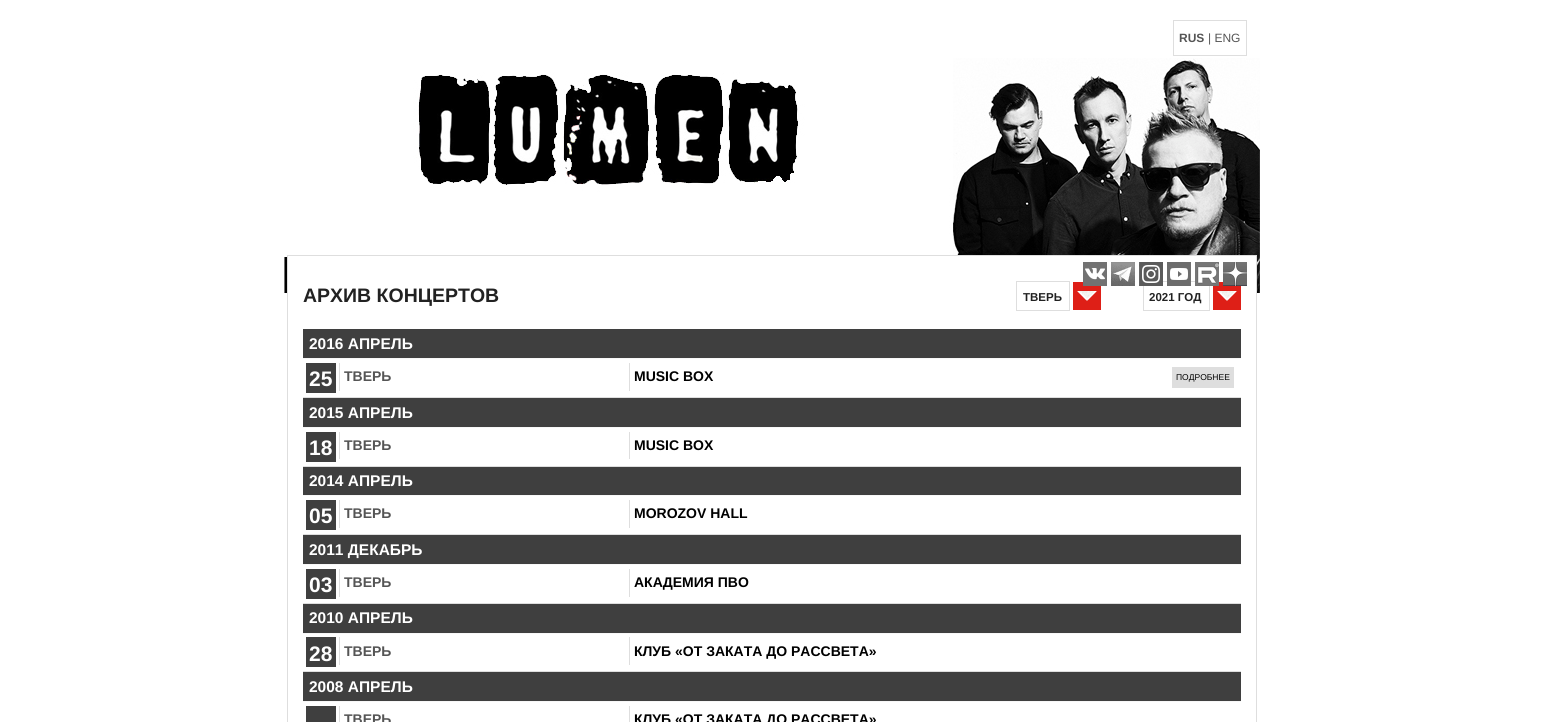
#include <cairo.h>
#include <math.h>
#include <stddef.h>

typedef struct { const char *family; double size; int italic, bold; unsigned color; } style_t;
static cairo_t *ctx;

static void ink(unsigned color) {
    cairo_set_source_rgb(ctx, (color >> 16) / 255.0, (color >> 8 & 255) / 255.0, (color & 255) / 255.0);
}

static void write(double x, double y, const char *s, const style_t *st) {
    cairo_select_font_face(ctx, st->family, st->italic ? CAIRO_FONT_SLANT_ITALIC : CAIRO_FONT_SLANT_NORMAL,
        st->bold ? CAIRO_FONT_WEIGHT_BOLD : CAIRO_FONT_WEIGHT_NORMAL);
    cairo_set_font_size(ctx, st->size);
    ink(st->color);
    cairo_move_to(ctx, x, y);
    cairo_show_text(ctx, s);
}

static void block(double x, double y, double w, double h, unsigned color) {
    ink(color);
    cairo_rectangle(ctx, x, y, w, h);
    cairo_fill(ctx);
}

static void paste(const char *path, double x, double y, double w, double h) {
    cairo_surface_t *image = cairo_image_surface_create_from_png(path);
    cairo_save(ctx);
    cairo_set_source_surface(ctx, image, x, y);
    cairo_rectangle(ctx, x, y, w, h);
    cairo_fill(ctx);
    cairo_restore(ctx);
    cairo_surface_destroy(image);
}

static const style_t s1 = {"Liberation Sans", 12, 0, 1, 0x555555};
static const style_t s2 = {"Liberation Sans", 12, 0, 0, 0x555555};
static const style_t s3 = {"Liberation Sans", 19.5, 0, 1, 0x222222};
static const style_t s4 = {"Liberation Sans", 11.5, 0, 1, 0x222222};
static const style_t s5 = {"Liberation Sans", 15.5, 0, 1, 0xffffff};
static const style_t s6 = {"Liberation Sans", 21, 0, 1, 0xffffff};
static const style_t s7 = {"Liberation Sans", 14, 0, 1, 0x555555};
static const style_t s8 = {"Liberation Sans", 14, 0, 1, 0x000000};
static const style_t s9 = {"Liberation Sans", 8.5, 0, 0, 0x000000};

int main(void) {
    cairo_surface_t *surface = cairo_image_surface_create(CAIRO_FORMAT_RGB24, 1543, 722);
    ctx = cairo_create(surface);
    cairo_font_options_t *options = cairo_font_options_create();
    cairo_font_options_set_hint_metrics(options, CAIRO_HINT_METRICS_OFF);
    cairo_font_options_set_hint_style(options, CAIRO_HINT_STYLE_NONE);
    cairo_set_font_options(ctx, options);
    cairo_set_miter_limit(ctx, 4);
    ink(0xffffff);
    cairo_paint(ctx);
    cairo_rectangle(ctx, 1173.5, 20.5, 73, 35);
    ink(0xdedede);
    cairo_set_line_width(ctx, 1);
    cairo_stroke(ctx);
    write(1179, 42, "RUS", &s1);
    write(1208, 42, "| ENG", &s2);
    paste("pic8.png", 284, 58, 976, 235);
    block(288, 256, 968, 37, 0xffffff);
    cairo_rectangle(ctx, 287.5, 255.5, 969, 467);
    ink(0xdedede);
    cairo_stroke(ctx);
    block(1073, 282, 28, 28, 0xde1f17);
    paste("pic1.png", 1083, 262, 24, 24);
    paste("pic2.png", 1111, 262, 24, 24);
    cairo_rectangle(ctx, 1143.5, 281.5, 66, 29);
    ink(0xdedede);
    cairo_stroke(ctx);
    paste("pic3.png", 1139, 262, 24, 24);
    paste("pic4.png", 1167, 262, 24, 24);
    block(1213, 282, 28, 28, 0xde1f17);
    paste("pic5.png", 1195, 262, 24, 24);
    paste("pic6.png", 1223, 262, 24, 24);
    write(303, 302, "АРХИВ КОНЦЕРТОВ", &s3);
    cairo_rectangle(ctx, 1016.5, 281.5, 53, 29);
    ink(0xdedede);
    cairo_stroke(ctx);
    write(1023, 301, "ТВЕРЬ", &s4);
    paste("pic7.png", 1077, 291, 20, 10);
    write(1149, 301, "2021 ГОД", &s4);
    paste("pic7.png", 1217, 291, 20, 10);
    block(303, 329, 938, 29, 0x3f3f3f);
    write(309, 349, "2016 АПРЕЛЬ", &s5);
    block(303, 358, 938, 1, 0xf7f7f7);
    block(303, 397, 938, 1, 0xdedede);
    block(306, 363, 30, 30, 0x3f3f3f);
    write(309, 386, "25", &s6);
    block(629, 363, 1, 28, 0xdedede);
    block(339, 363, 1, 28, 0xdedede);
    write(344, 381, "ТВЕРЬ", &s7);
    write(634, 381, "MUSIC BOX", &s8);
    block(1172, 367, 62, 21, 0xdedede);
    write(1176, 380, "ПОДРОБНЕЕ", &s9);
    block(303, 398, 938, 29, 0x3f3f3f);
    write(309, 418, "2015 АПРЕЛЬ", &s5);
    block(303, 427, 938, 1, 0xf7f7f7);
    block(303, 466, 938, 1, 0xdedede);
    block(306, 432, 30, 30, 0x3f3f3f);
    write(309, 455, "18", &s6);
    block(629, 432, 1, 27, 0xdedede);
    block(339, 432, 1, 27, 0xdedede);
    write(344, 450, "ТВЕРЬ", &s7);
    write(634, 450, "MUSIC BOX", &s8);
    block(303, 467, 938, 28, 0x3f3f3f);
    write(309, 486, "2014 АПРЕЛЬ", &s5);
    block(303, 495, 938, 1, 0xf7f7f7);
    block(303, 534, 938, 1, 0xdedede);
    block(306, 500, 30, 30, 0x3f3f3f);
    write(309, 523, "05", &s6);
    block(629, 500, 1, 28, 0xdedede);
    block(339, 500, 1, 28, 0xdedede);
    write(344, 518, "ТВЕРЬ", &s7);
    write(634, 518, "MOROZOV HALL", &s8);
    block(303, 535, 938, 29, 0x3f3f3f);
    write(309, 555, "2011 ДЕКАБРЬ", &s5);
    block(303, 564, 938, 1, 0xf7f7f7);
    block(303, 603, 938, 1, 0xdedede);
    block(306, 569, 30, 30, 0x3f3f3f);
    write(309, 592, "03", &s6);
    block(629, 569, 1, 28, 0xdedede);
    block(339, 569, 1, 28, 0xdedede);
    write(344, 587, "ТВЕРЬ", &s7);
    write(634, 587, "АКАДЕМИЯ ПВО", &s8);
    block(303, 604, 938, 29, 0x3f3f3f);
    write(309, 623, "2010 АПРЕЛЬ", &s5);
    block(303, 633, 938, 1, 0xf7f7f7);
    block(303, 671, 938, 1, 0xdedede);
    block(306, 637, 30, 30, 0x3f3f3f);
    write(309, 661, "28", &s6);
    block(629, 637, 1, 28, 0xdedede);
    block(339, 637, 1, 28, 0xdedede);
    write(344, 656, "ТВЕРЬ", &s7);
    write(634, 656, "КЛУБ «ОТ ЗАКАТА ДО РАССВЕТА»", &s8);
    block(303, 672, 938, 29, 0x3f3f3f);
    write(309, 692, "2008 АПРЕЛЬ", &s5);
    block(303, 701, 938, 1, 0xf7f7f7);
    block(306, 706, 30, 16, 0x3f3f3f);
    block(629, 706, 1, 16, 0xdedede);
    block(339, 706, 1, 16, 0xdedede);
    write(344, 724, "ТВЕРЬ", &s7);
    write(634, 724, "КЛУБ «ОТ ЗАКАТА ДО РАССВЕТА»", &s8);
    cairo_surface_write_to_png(surface, "screenshot.png");
    cairo_font_options_destroy(options);
    cairo_destroy(ctx);
    cairo_surface_destroy(surface);
    return 0;
}
